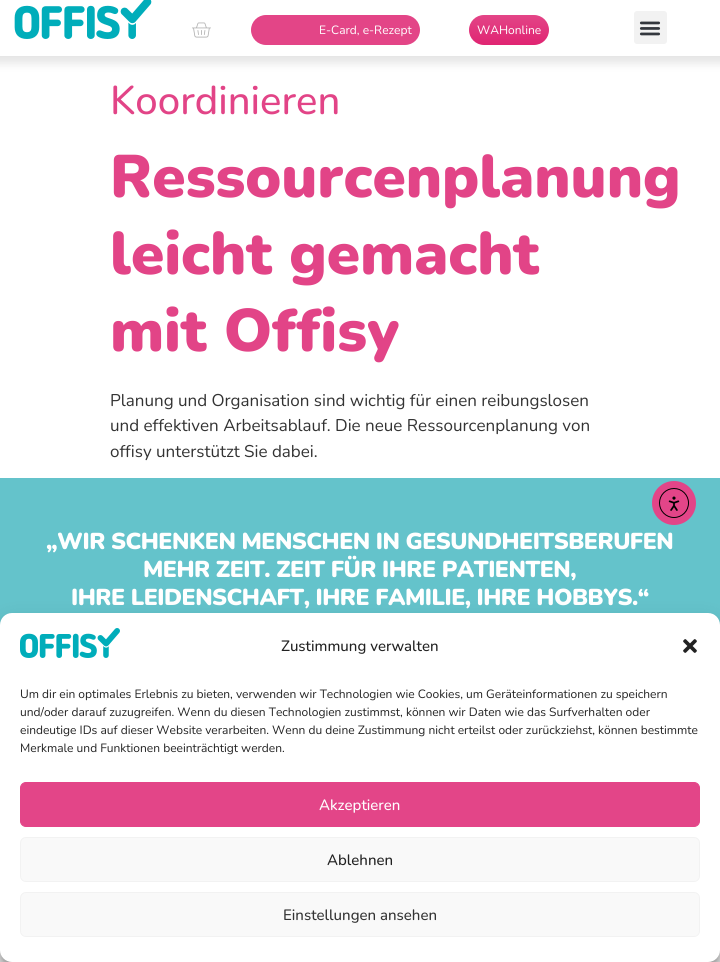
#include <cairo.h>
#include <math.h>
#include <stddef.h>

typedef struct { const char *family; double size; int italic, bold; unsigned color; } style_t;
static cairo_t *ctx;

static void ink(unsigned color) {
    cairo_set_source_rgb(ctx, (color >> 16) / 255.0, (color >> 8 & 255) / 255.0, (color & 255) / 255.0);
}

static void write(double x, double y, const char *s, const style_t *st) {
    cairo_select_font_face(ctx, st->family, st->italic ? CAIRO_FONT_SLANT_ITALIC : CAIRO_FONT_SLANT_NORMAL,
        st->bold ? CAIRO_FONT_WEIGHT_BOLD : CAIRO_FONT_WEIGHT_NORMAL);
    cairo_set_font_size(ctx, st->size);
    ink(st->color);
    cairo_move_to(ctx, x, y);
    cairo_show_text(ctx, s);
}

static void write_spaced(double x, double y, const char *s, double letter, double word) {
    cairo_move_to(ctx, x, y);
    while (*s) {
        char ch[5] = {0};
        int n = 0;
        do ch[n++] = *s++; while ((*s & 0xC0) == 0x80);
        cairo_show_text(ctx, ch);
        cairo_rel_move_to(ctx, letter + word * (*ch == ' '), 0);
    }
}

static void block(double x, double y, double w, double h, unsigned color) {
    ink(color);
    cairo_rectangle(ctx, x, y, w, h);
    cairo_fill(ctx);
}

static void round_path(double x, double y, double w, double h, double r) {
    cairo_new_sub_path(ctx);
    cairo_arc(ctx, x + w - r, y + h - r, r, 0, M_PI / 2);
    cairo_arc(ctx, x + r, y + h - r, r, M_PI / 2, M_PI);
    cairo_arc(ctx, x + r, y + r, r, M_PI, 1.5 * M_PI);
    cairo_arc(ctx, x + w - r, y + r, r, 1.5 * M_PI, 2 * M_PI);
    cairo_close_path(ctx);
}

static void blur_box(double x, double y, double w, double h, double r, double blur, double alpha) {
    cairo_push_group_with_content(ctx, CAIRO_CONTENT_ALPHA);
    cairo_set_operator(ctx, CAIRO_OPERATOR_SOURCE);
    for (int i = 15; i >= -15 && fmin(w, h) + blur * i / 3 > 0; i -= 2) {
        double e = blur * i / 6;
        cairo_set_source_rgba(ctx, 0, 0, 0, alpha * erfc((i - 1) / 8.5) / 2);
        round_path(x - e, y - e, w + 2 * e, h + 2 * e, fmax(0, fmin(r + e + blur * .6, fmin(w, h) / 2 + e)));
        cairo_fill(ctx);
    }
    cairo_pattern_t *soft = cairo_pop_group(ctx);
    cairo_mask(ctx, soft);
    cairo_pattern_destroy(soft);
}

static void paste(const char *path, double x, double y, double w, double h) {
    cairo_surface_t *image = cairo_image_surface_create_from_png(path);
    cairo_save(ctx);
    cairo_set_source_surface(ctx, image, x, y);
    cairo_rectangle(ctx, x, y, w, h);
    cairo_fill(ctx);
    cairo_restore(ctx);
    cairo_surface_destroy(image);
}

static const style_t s1 = {"Nunito", 12, 0, 0, 0xffffff};
static const style_t s2 = {"Nunito Medium", 40, 0, 0, 0xe24487};
static const style_t s3 = {"Nunito Black", 60, 0, 0, 0xe24487};
static const style_t s4 = {"Nunito", 17, 0, 0, 0x333333};
static const style_t s5 = {"Nunito Medium", 15, 0, 0, 0x222222};
static const style_t s6 = {"Nunito", 12, 0, 0, 0x222222};
static const style_t s7 = {"Nunito Medium", 15, 0, 0, 0xffffff};
static const style_t s8 = {"Nunito Medium", 15, 0, 0, 0x333333};

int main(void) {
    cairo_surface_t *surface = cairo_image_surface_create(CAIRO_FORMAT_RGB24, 720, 962);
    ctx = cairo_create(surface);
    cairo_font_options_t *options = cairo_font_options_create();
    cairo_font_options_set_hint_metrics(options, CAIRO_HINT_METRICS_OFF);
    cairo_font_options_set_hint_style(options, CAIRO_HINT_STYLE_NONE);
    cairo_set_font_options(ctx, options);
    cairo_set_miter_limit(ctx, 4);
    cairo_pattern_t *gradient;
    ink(0xffffff);
    cairo_paint(ctx);
    ink(0x000000);
    blur_box(-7, -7, 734, 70, 0, 5, 0.11);
    block(0, 0, 720, 56, 0xffffff);
    paste("pic1.png", 14, 0, 138, 39);
    paste("pic2.png", 192, 22, 19, 16);
    ink(0xe34587);
    round_path(251, 15, 169, 30, 15);
    cairo_fill(ctx);
    write(319, 34, "E-Card, e-Rezept", &s1);
    gradient = cairo_pattern_create_linear(509, 15, 509, 45);
    cairo_pattern_add_color_stop_rgba(gradient, 0, 0.89, 0.271, 0.529, 1);
    cairo_pattern_add_color_stop_rgba(gradient, 1, 0.878, 0.141, 0.447, 1);
    cairo_set_source(ctx, gradient);
    cairo_pattern_destroy(gradient);
    round_path(469, 15, 80, 30, 15);
    cairo_fill(ctx);
    write(477, 34, "WAHonline", &s1);
    ink(0xf2f2f2);
    round_path(634, 11, 33, 33, 3);
    cairo_fill(ctx);
    paste("pic3.png", 639, 21, 22, 15);
    write(110, 114, "Koordinieren", &s2);
    write(110, 197, "Ressourcenplanung", &s3);
    write(110, 274, "leicht gemacht", &s3);
    write(110, 351, "mit Offisy", &s3);
    write(110, 406, "Planung und Organisation sind wichtig für einen reibungslosen", &s4);
    write(110, 431, "und effektiven Arbeitsablauf. Die neue Ressourcenplanung von", &s4);
    write(110, 457, "offisy unterstützt Sie dabei.", &s4);
    block(0, 478, 720, 147, 0x64c3cb);
    ink(0xe34588);
    cairo_new_path(ctx);
    cairo_arc(ctx, 674, 503, 22, 0, 2 * M_PI);
    cairo_fill(ctx);
    cairo_arc(ctx, 674, 503, 14.5, 0, 2 * M_PI);
    ink(0x000000);
    cairo_set_line_width(ctx, 1);
    cairo_stroke(ctx);
    paste("pic4.png", 668, 496, 12, 15);
    cairo_select_font_face(ctx, "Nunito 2 Black", CAIRO_FONT_SLANT_NORMAL, CAIRO_FONT_WEIGHT_NORMAL);
    cairo_set_font_size(ctx, 23);
    ink(0xffffff);
    write_spaced(46, 549, "„WIR SCHENKEN MENSCHEN IN GESUNDHEITSBERUFEN", -0.5, 0);
    write_spaced(143, 577, "MEHR ZEIT. ZEIT FÜR IHRE PATIENTEN,", -0.5, 0);
    write_spaced(71, 605, "IHRE LEIDENSCHAFT, IHRE FAMILIE, IHRE HOBBYS.“", -0.5, 0);
    block(0, 950, 720, 12, 0xededed);
    ink(0x000000);
    blur_box(0, 619, 720, 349, 12, 3, 0.23);
    blur_box(0, 623, 720, 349, 12, 10, 0.19);
    ink(0xffffff);
    round_path(0, 613, 720, 349, 12);
    cairo_fill(ctx);
    paste("pic5.png", 20, 628, 100, 30);
    write(281, 651, "Zustimmung verwalten", &s5);
    paste("pic6.png", 683, 639, 14, 14);
    write(20, 698, "Um dir ein optimales Erlebnis zu bieten, verwenden wir Technologien wie Cookies, um Geräteinformationen zu speichern", &s6);
    write(20, 716, "und/oder darauf zuzugreifen. Wenn du diesen Technologien zustimmst, können wir Daten wie das Surfverhalten oder", &s6);
    write(20, 734, "eindeutige IDs auf dieser Website verarbeiten. Wenn du deine Zustimmung nicht erteilst oder zurückziehst, können bestimmte", &s6);
    write(20, 752, "Merkmale und Funktionen beeinträchtigt werden.", &s6);
    ink(0xe34588);
    round_path(20.5, 782.5, 679, 44, 5.5);
    cairo_fill_preserve(ctx);
    cairo_stroke(ctx);
    write(319, 810, "Akzeptieren", &s7);
    ink(0xf9f9f9);
    round_path(20.5, 837.5, 679, 44, 5.5);
    cairo_fill_preserve(ctx);
    ink(0xf2f2f2);
    cairo_stroke(ctx);
    write(327, 865, "Ablehnen", &s5);
    ink(0xf9f9f9);
    round_path(20.5, 892.5, 679, 44, 5.5);
    cairo_fill_preserve(ctx);
    ink(0xf2f2f2);
    cairo_stroke(ctx);
    write(283, 920, "Einstellungen ansehen", &s8);
    cairo_surface_write_to_png(surface, "screenshot.png");
    cairo_font_options_destroy(options);
    cairo_destroy(ctx);
    cairo_surface_destroy(surface);
    return 0;
}
